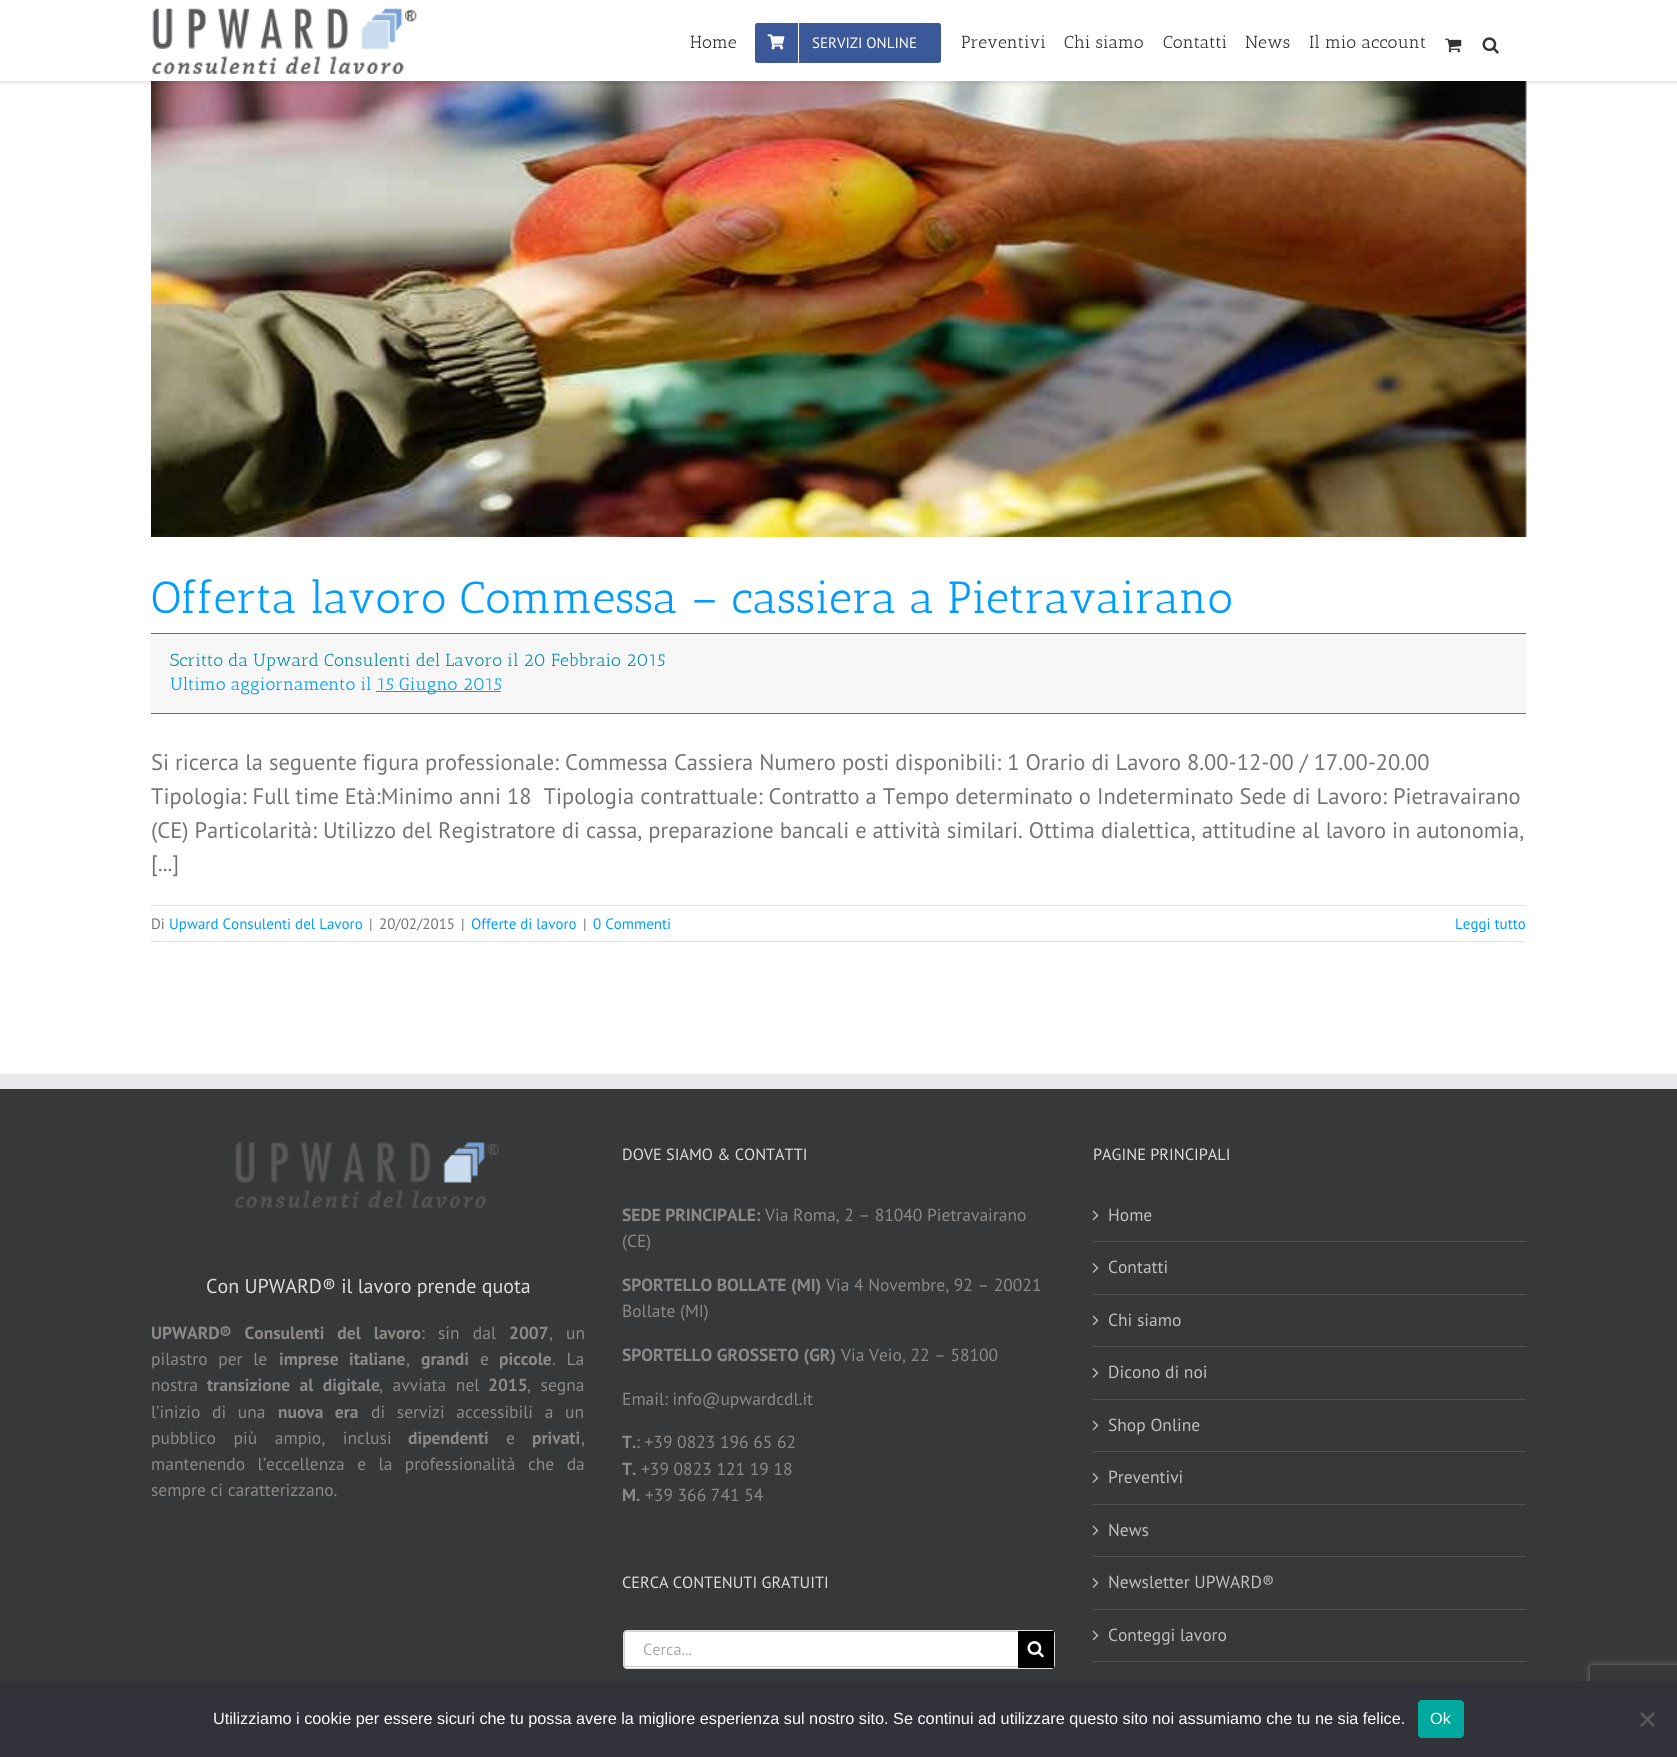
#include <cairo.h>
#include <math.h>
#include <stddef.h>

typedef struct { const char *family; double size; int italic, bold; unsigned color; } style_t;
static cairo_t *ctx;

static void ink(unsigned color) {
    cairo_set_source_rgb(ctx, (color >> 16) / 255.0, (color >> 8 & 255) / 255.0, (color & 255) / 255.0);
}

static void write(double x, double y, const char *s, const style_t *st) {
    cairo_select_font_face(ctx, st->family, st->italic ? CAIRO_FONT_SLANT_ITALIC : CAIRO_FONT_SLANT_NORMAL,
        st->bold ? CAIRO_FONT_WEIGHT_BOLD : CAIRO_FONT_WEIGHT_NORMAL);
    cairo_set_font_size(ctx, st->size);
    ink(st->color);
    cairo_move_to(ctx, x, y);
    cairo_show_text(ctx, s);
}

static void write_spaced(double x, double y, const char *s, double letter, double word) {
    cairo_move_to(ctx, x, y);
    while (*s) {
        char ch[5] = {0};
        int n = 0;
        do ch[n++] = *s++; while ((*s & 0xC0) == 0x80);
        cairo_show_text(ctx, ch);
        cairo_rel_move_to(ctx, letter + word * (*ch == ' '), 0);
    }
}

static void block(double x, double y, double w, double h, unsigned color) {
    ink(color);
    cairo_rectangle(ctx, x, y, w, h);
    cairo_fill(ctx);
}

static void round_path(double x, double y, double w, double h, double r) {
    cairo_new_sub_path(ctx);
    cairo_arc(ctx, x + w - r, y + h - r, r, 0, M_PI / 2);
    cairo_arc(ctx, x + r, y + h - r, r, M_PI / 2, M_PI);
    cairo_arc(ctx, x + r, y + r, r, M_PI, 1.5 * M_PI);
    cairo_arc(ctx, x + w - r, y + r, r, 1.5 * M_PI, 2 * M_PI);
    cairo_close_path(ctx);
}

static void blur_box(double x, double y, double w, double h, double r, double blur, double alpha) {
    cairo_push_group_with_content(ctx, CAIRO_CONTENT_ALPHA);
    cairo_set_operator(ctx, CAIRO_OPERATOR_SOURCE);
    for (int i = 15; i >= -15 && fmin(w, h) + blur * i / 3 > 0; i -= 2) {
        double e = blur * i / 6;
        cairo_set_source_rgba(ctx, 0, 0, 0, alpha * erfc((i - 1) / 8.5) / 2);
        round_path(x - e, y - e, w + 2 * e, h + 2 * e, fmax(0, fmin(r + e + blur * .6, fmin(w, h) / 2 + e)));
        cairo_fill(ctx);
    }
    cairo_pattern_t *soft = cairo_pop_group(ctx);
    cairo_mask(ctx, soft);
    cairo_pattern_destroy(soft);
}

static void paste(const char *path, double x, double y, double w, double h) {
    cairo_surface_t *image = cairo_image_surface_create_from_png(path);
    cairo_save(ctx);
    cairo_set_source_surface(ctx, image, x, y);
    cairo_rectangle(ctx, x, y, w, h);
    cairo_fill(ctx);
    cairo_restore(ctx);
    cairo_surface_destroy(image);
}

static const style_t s1 = {"Antic Slab", 17.5, 0, 0, 0x333333};
static const style_t s2 = {"PT Sans", 15, 0, 0, 0xffffff};
static const style_t s3 = {"Antic Slab", 45, 0, 0, 0x029cfc};
static const style_t s4 = {"Antic Slab", 17.5, 0, 0, 0x0991a7};
static const style_t s5 = {"Antic Slab", 17.5, 0, 0, 0x029cfc};
static const style_t s6 = {"PT Sans", 22.5, 0, 0, 0x747474};
static const style_t s7 = {"PT Sans", 15, 0, 0, 0x747474};
static const style_t s8 = {"PT Sans", 15, 0, 0, 0x029cfc};
static const style_t s9 = {"PT Sans", 20, 0, 0, 0xdddddd};
static const style_t s10 = {"PT Sans", 17.5, 0, 1, 0x8c8989};
static const style_t s11 = {"PT Sans", 17.5, 0, 0, 0x8c8989};
static const style_t s12 = {"PT Sans", 16.25, 0, 0, 0xdddddd};
static const style_t s13 = {"PT Sans", 16.25, 0, 0, 0xaaa9a9};
static const style_t s14 = {"PT Sans", 17.5, 0, 0, 0xbfbfbf};
static const style_t s15 = {"Liberation Sans", 16.25, 0, 0, 0xffffff};

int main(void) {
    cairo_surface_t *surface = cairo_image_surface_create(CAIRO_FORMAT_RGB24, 1677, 1757);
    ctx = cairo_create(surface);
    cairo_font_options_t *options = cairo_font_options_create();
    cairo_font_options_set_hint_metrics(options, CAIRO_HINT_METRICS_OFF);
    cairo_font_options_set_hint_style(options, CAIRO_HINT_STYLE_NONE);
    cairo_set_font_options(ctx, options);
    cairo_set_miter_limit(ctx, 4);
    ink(0xffffff);
    cairo_paint(ctx);
    paste("pic5.png", 151, 81, 1376, 456);
    ink(0x000000);
    blur_box(0, 1, 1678, 82, 0, 2, 0.12);
    block(0, 0, 1677, 81, 0xffffff);
    paste("pic1.png", 152, 8, 265, 66);
    write(690, 48, "Home", &s1);
    ink(0x3b5998);
    round_path(755, 23, 186, 40, 2.5);
    cairo_fill(ctx);
    block(798, 23, 1, 40, 0xffffff);
    paste("pic2.png", 767, 34, 18, 16);
    write(812, 48, "SERVIZI ONLINE", &s2);
    write(961, 48, "Preventivi", &s1);
    write(1064, 48, "Chi siamo", &s1);
    write(1163, 48, "Contatti", &s1);
    write(1245, 48, "News", &s1);
    write(1309, 48, "Il mio account", &s1);
    paste("pic3.png", 1445, 38, 17, 15);
    paste("pic4.png", 1482, 37, 17, 17);
    write(151, 613, "Offerta lavoro Commessa – cassiera a Pietravairano", &s3);
    block(151, 634, 1375, 79, 0xf7f7f7);
    block(151, 633, 1375, 1, 0x0991a7);
    block(151, 713, 1375, 1, 0x0991a7);
    write(170, 666, "Scritto da Upward Consulenti del Lavoro il 20 Febbraio 2015", &s4);
    write(170, 690, "Ultimo aggiornamento il", &s5);
    block(376, 691, 125, 1, 0x029cfc);
    write(377, 690, "15 Giugno 2015", &s5);
    write(151, 770, "Si ricerca la seguente figura professionale: Commessa Cassiera Numero posti disponibili: 1 Orario di Lavoro 8.00-12-00 / 17.00-20.00", &s6);
    write(151, 804, "Tipologia: Full time Età:Minimo anni 18  Tipologia contrattuale: Contratto a Tempo determinato o Indeterminato Sede di Lavoro: Pietravairano", &s6);
    write(151, 838, "(CE) Particolarità: Utilizzo del Registratore di cassa, preparazione bancali e attività similari. Ottima dialettica, attitudine al lavoro in autonomia,", &s6);
    write(151, 871, "[...]", &s6);
    block(151, 905, 1375, 1, 0xe0dede);
    block(151, 941, 1375, 1, 0xe0dede);
    write(151, 929, "Di", &s7);
    write(169, 929, "Upward Consulenti del Lavoro", &s8);
    write(369, 929, "|", &s7);
    write(379, 929, "20/02/2015", &s7);
    write(461, 929, "|", &s7);
    write(471, 929, "Offerte di lavoro", &s8);
    write(583, 929, "|", &s7);
    write(593, 929, "0 Commenti", &s8);
    write(1455, 929, "Leggi tutto", &s8);
    block(0, 1089, 1677, 592, 0x363839);
    block(0, 1074, 1677, 15, 0xe9eaee);
    paste("pic6.png", 235, 1142, 264, 66);
    write(206, 1293, "Con UPWARD® il lavoro prende quota", &s9);
    cairo_select_font_face(ctx, "PT Sans", CAIRO_FONT_SLANT_NORMAL, CAIRO_FONT_WEIGHT_BOLD);
    cairo_set_font_size(ctx, 17.5);
    ink(0x8c8989);
    write_spaced(151, 1339, "UPWARD® Consulenti del lavoro", 0, 8.5);
    cairo_select_font_face(ctx, "PT Sans", CAIRO_FONT_SLANT_NORMAL, CAIRO_FONT_WEIGHT_NORMAL);
    write_spaced(421, 1339, ": sin dal", 0, 8.5);
    write(509, 1339, "2007", &s10);
    cairo_select_font_face(ctx, "PT Sans", CAIRO_FONT_SLANT_NORMAL, CAIRO_FONT_WEIGHT_NORMAL);
    write_spaced(549, 1339, ", un", 0, 8.5);
    write_spaced(151, 1365, "pilastro per le", 0, 6);
    cairo_select_font_face(ctx, "PT Sans", CAIRO_FONT_SLANT_NORMAL, CAIRO_FONT_WEIGHT_BOLD);
    write_spaced(279, 1365, "imprese italiane", 0, 6);
    write(406, 1365, ",", &s11);
    write(421, 1365, "grandi", &s10);
    write(480, 1365, "e", &s11);
    write(499, 1365, "piccole", &s10);
    cairo_select_font_face(ctx, "PT Sans", CAIRO_FONT_SLANT_NORMAL, CAIRO_FONT_WEIGHT_NORMAL);
    write_spaced(552, 1365, ". La", 0, 6);
    write(151, 1391, "nostra", &s11);
    cairo_select_font_face(ctx, "PT Sans", CAIRO_FONT_SLANT_NORMAL, CAIRO_FONT_WEIGHT_BOLD);
    write_spaced(207, 1391, "transizione al digitale", 0, 5);
    cairo_select_font_face(ctx, "PT Sans", CAIRO_FONT_SLANT_NORMAL, CAIRO_FONT_WEIGHT_NORMAL);
    write_spaced(379, 1391, ", avviata nel", 0, 5);
    write(488, 1391, "2015", &s10);
    cairo_select_font_face(ctx, "PT Sans", CAIRO_FONT_SLANT_NORMAL, CAIRO_FONT_WEIGHT_NORMAL);
    write_spaced(527, 1391, ", segna", 0, 5);
    write_spaced(151, 1418, "l’inizio di una", 0, 7);
    cairo_select_font_face(ctx, "PT Sans", CAIRO_FONT_SLANT_NORMAL, CAIRO_FONT_WEIGHT_BOLD);
    write_spaced(278, 1418, "nuova era", 0, 7);
    cairo_select_font_face(ctx, "PT Sans", CAIRO_FONT_SLANT_NORMAL, CAIRO_FONT_WEIGHT_NORMAL);
    write_spaced(371, 1418, "di servizi accessibili a un", 0, 7);
    write_spaced(151, 1444, "pubblico più ampio, inclusi", 0, 13);
    write(408, 1444, "dipendenti", &s10);
    write(506, 1444, "e", &s11);
    write(532, 1444, "privati", &s10);
    write(581, 1444, ",", &s11);
    write_spaced(151, 1470, "mantenendo l’eccellenza e la professionalità che da", 0, 7.75);
    write(151, 1496, "sempre ci caratterizzano.", &s11);
    write(622, 1160, "DOVE SIAMO & CONTATTI", &s12);
    write(622, 1221, "SEDE PRINCIPALE:", &s10);
    write(765, 1221, "Via Roma, 2 – 81040 Pietravairano", &s11);
    write(622, 1247, "(CE)", &s11);
    write(622, 1291, "SPORTELLO BOLLATE (MI)", &s10);
    write(826, 1291, "Via 4 Novembre, 92 – 20021", &s11);
    write(622, 1317, "Bollate (MI)", &s11);
    write(622, 1361, "SPORTELLO GROSSETO (GR)", &s10);
    write(841, 1361, "Via Veio, 22 – 58100", &s11);
    write(622, 1405, "Email: info@upwardcdl.it", &s11);
    write(622, 1448, "T.", &s10);
    write(636, 1448, ": +39 0823 196 65 62", &s11);
    write(622, 1475, "T.", &s10);
    write(641, 1475, "+39 0823 121 19 18", &s11);
    write(622, 1501, "M.", &s10);
    write(645, 1501, "+39 366 741 54", &s11);
    write(622, 1588, "CERCA CONTENUTI GRATUITI", &s12);
    round_path(623.5, 1630.5, 431, 38, 3.5);
    ink(0xe0e0e0);
    cairo_set_line_width(ctx, 1);
    cairo_stroke(ctx);
    block(625, 1632, 393, 36, 0xffffff);
    block(624, 1631, 394, 1, 0xd2d2d2);
    block(624, 1666, 394, 1, 0xd2d2d2);
    block(624, 1631, 1, 37, 0xd2d2d2);
    write(643, 1655, "Cerca...", &s13);
    block(1018, 1631, 36, 37, 0x000000);
    paste("pic7.png", 1027, 1641, 17, 17);
    write(1093, 1160, "PAGINE PRINCIPALI", &s12);
    block(1093, 1241, 433, 1, 0x505152);
    paste("pic8.png", 1092, 1210, 7, 11);
    write(1108, 1221, "Home", &s14);
    block(1093, 1294, 433, 1, 0x505152);
    paste("pic9.png", 1092, 1263, 7, 10);
    write(1108, 1273, "Contatti", &s14);
    block(1093, 1346, 433, 1, 0x505152);
    paste("pic8.png", 1092, 1315, 7, 11);
    write(1108, 1326, "Chi siamo", &s14);
    block(1093, 1399, 433, 1, 0x505152);
    paste("pic9.png", 1092, 1368, 7, 10);
    write(1108, 1378, "Dicono di noi", &s14);
    block(1093, 1451, 433, 1, 0x505152);
    paste("pic8.png", 1092, 1420, 7, 11);
    write(1108, 1431, "Shop Online", &s14);
    block(1093, 1504, 433, 1, 0x505152);
    paste("pic9.png", 1092, 1473, 7, 10);
    write(1108, 1483, "Preventivi", &s14);
    block(1093, 1556, 433, 1, 0x505152);
    paste("pic8.png", 1092, 1525, 7, 11);
    write(1108, 1536, "News", &s14);
    block(1093, 1609, 433, 1, 0x505152);
    paste("pic9.png", 1092, 1578, 7, 10);
    write(1108, 1588, "Newsletter UPWARD®", &s14);
    block(1093, 1661, 433, 1, 0x505152);
    paste("pic8.png", 1092, 1630, 7, 11);
    write(1108, 1641, "Conteggi lavoro", &s14);
    cairo_save(ctx);
    cairo_set_fill_rule(ctx, CAIRO_FILL_RULE_EVEN_ODD);
    cairo_new_path(ctx);
    cairo_move_to(ctx, 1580, 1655);
    cairo_line_to(ctx, 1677, 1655);
    cairo_line_to(ctx, 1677, 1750);
    cairo_line_to(ctx, 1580, 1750);
    cairo_close_path(ctx);
    cairo_move_to(ctx, 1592.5, 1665);
    cairo_line_to(ctx, 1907.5, 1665);
    cairo_curve_to(ctx, 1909, 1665, 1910, 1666, 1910, 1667.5);
    cairo_line_to(ctx, 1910, 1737.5);
    cairo_curve_to(ctx, 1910, 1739, 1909, 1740, 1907.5, 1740);
    cairo_line_to(ctx, 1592.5, 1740);
    cairo_curve_to(ctx, 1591, 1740, 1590, 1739, 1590, 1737.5);
    cairo_line_to(ctx, 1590, 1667.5);
    cairo_curve_to(ctx, 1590, 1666, 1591, 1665, 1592.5, 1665);
    cairo_close_path(ctx);
    cairo_clip(ctx);
    ink(0x808080);
    blur_box(1590, 1665, 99, 75, 2.5, 3, 1);
    cairo_restore(ctx);
    block(0, 1681, 1677, 76, 0x32323a);
    write(213, 1724, "Utilizziamo i cookie per essere sicuri che tu possa avere la migliore esperienza sul nostro sito. Se continui ad utilizzare questo sito noi assumiamo che tu ne sia felice.", &s15);
    ink(0x00a99d);
    round_path(1418, 1700, 46, 38, 4);
    cairo_fill(ctx);
    write(1430, 1724, "Ok", &s15);
    ink(0x59595d);
    cairo_new_path(ctx);
    cairo_move_to(ctx, 1653, 1712);
    cairo_line_to(ctx, 1655, 1714);
    cairo_line_to(ctx, 1642, 1727);
    cairo_line_to(ctx, 1640, 1725.5);
    cairo_close_path(ctx);
    cairo_fill(ctx);
    cairo_new_path(ctx);
    cairo_move_to(ctx, 1640, 1714);
    cairo_line_to(ctx, 1642, 1712);
    cairo_line_to(ctx, 1655, 1725.5);
    cairo_line_to(ctx, 1653, 1727);
    cairo_close_path(ctx);
    cairo_fill(ctx);
    cairo_surface_write_to_png(surface, "screenshot.png");
    cairo_font_options_destroy(options);
    cairo_destroy(ctx);
    cairo_surface_destroy(surface);
    return 0;
}
